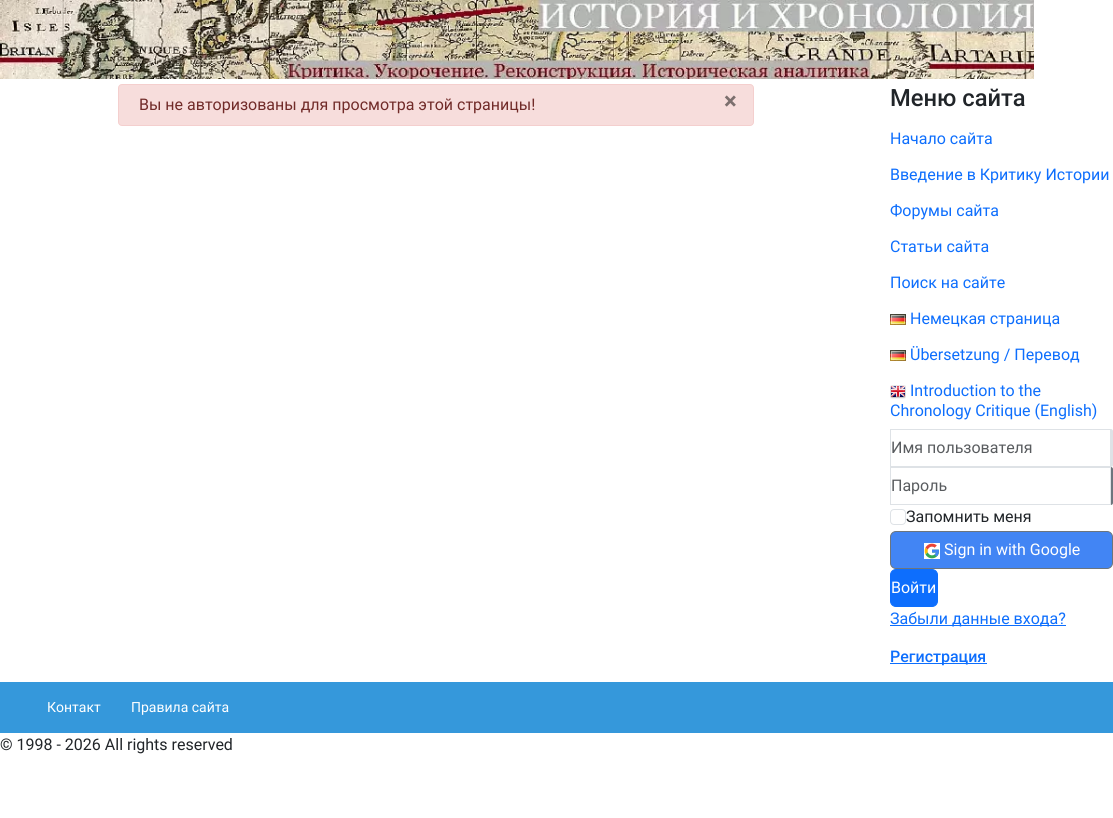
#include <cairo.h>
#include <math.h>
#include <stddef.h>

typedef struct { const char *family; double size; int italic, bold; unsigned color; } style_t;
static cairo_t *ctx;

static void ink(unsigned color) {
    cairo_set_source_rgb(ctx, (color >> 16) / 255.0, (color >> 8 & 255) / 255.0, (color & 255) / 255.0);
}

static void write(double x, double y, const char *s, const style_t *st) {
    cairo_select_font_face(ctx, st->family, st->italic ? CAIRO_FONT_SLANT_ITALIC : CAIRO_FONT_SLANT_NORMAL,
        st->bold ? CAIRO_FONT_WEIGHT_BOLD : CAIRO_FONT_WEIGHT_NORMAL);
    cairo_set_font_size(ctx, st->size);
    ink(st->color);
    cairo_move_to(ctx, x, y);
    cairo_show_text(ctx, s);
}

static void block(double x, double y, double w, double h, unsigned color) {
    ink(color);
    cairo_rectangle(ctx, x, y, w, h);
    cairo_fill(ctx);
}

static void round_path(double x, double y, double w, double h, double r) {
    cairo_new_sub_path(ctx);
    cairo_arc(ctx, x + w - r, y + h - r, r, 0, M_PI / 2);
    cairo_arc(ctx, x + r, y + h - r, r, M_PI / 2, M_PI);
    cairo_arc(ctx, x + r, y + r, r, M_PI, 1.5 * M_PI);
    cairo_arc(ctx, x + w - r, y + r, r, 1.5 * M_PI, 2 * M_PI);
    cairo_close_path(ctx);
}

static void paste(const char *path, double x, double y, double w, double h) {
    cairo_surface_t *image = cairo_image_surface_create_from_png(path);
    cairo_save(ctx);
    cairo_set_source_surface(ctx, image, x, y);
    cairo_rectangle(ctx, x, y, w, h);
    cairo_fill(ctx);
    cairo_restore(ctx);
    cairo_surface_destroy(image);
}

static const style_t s1 = {"Roboto", 16, 0, 0, 0x712b29};
static const style_t s2 = {"Roboto", 24, 0, 1, 0x7c6f6e};
static const style_t s3 = {"Roboto Medium", 23.75, 0, 0, 0x212529};
static const style_t s4 = {"Roboto", 16, 0, 0, 0x0d6efd};
static const style_t s5 = {"Roboto", 16, 0, 0, 0x595c5f};
static const style_t s6 = {"Roboto", 16, 0, 0, 0x212529};
static const style_t s7 = {"Roboto", 16, 0, 0, 0xffffff};
static const style_t s8 = {"Roboto Medium", 16, 0, 0, 0x0d6efd};
static const style_t s9 = {"Roboto", 14, 0, 0, 0xffffff};

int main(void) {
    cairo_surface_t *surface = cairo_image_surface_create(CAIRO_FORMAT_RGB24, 1113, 818);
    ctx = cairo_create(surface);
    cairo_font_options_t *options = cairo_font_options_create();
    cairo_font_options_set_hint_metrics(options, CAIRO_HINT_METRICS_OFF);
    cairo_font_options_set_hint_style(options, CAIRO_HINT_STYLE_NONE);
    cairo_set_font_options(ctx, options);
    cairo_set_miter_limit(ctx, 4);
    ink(0xffffff);
    cairo_paint(ctx);
    paste("pic1.png", 0, 0, 1034, 79);
    ink(0xf7dddc);
    round_path(118.5, 84.5, 635, 41, 3.5);
    cairo_fill_preserve(ctx);
    ink(0xf4cfce);
    cairo_set_line_width(ctx, 1);
    cairo_stroke(ctx);
    write(139, 110, "Вы не авторизованы для просмотра этой страницы!", &s1);
    write(724, 109, "×", &s2);
    write(890, 106, "Меню сайта", &s3);
    write(890, 144, "Начало сайта", &s4);
    write(890, 180, "Введение в Критику Истории", &s4);
    write(890, 216, "Форумы сайта", &s4);
    write(890, 252, "Статьи сайта", &s4);
    write(890, 288, "Поиск на сайте", &s4);
    paste("pic2.png", 890, 314, 16, 11);
    write(910, 324, "Немецкая страница", &s4);
    paste("pic2.png", 890, 350, 16, 11);
    write(910, 360, "Übersetzung / Перевод", &s4);
    paste("pic3.png", 890, 385, 16, 14);
    write(910, 396, "Introduction to the", &s4);
    write(890, 416, "Chronology Critique (English)", &s4);
    cairo_rectangle(ctx, 890.5, 429.5, 220, 37);
    ink(0xdee2e6);
    cairo_stroke(ctx);
    write(891, 453, "Имя пользователя", &s5);
    ink(0xdee2e6);
    cairo_new_path(ctx);
    cairo_move_to(ctx, 1111, 429);
    cairo_curve_to(ctx, 1112, 429, 1113, 430, 1113, 431);
    cairo_line_to(ctx, 1113, 465);
    cairo_curve_to(ctx, 1113, 466, 1112, 467, 1111, 467);
    cairo_close_path(ctx);
    cairo_fill(ctx);
    cairo_rectangle(ctx, 890.5, 467.5, 220, 37);
    cairo_stroke(ctx);
    write(891, 491, "Пароль", &s5);
    ink(0x6c757d);
    cairo_new_path(ctx);
    cairo_move_to(ctx, 1111, 467);
    cairo_curve_to(ctx, 1112, 467, 1113, 468, 1113, 469);
    cairo_line_to(ctx, 1113, 503);
    cairo_curve_to(ctx, 1113, 504, 1112, 505, 1111, 505);
    cairo_close_path(ctx);
    cairo_fill(ctx);
    round_path(890.5, 509.5, 15, 15, 3.5);
    ink(0xdee2e6);
    cairo_stroke(ctx);
    write(906, 522, "Запомнить меня", &s6);
    ink(0x4285f4);
    round_path(890.5, 531.5, 222, 37, 5.5);
    cairo_fill_preserve(ctx);
    ink(0x6c757d);
    cairo_stroke(ctx);
    block(924, 543, 16, 16, 0xffffff);
    paste("pic4.png", 924, 543, 15, 16);
    write(944, 555, "Sign in with Google", &s7);
    ink(0x0d6efd);
    round_path(890.5, 569.5, 47, 37, 5.5);
    cairo_fill_preserve(ctx);
    cairo_stroke(ctx);
    write(891, 593, "Войти", &s7);
    block(890, 625, 176, 1, 0x0d6efd);
    write(890, 624, "Забыли данные входа?", &s4);
    block(890, 663, 97, 1, 0x0d6efd);
    write(890, 662, "Регистрация", &s8);
    block(0, 682, 1113, 51, 0x3598db);
    write(47, 712, "Контакт", &s9);
    write(131, 712, "Правила сайта", &s9);
    write(0, 750, "© 1998 - 2026 All rights reserved", &s6);
    cairo_surface_write_to_png(surface, "screenshot.png");
    cairo_font_options_destroy(options);
    cairo_destroy(ctx);
    cairo_surface_destroy(surface);
    return 0;
}
